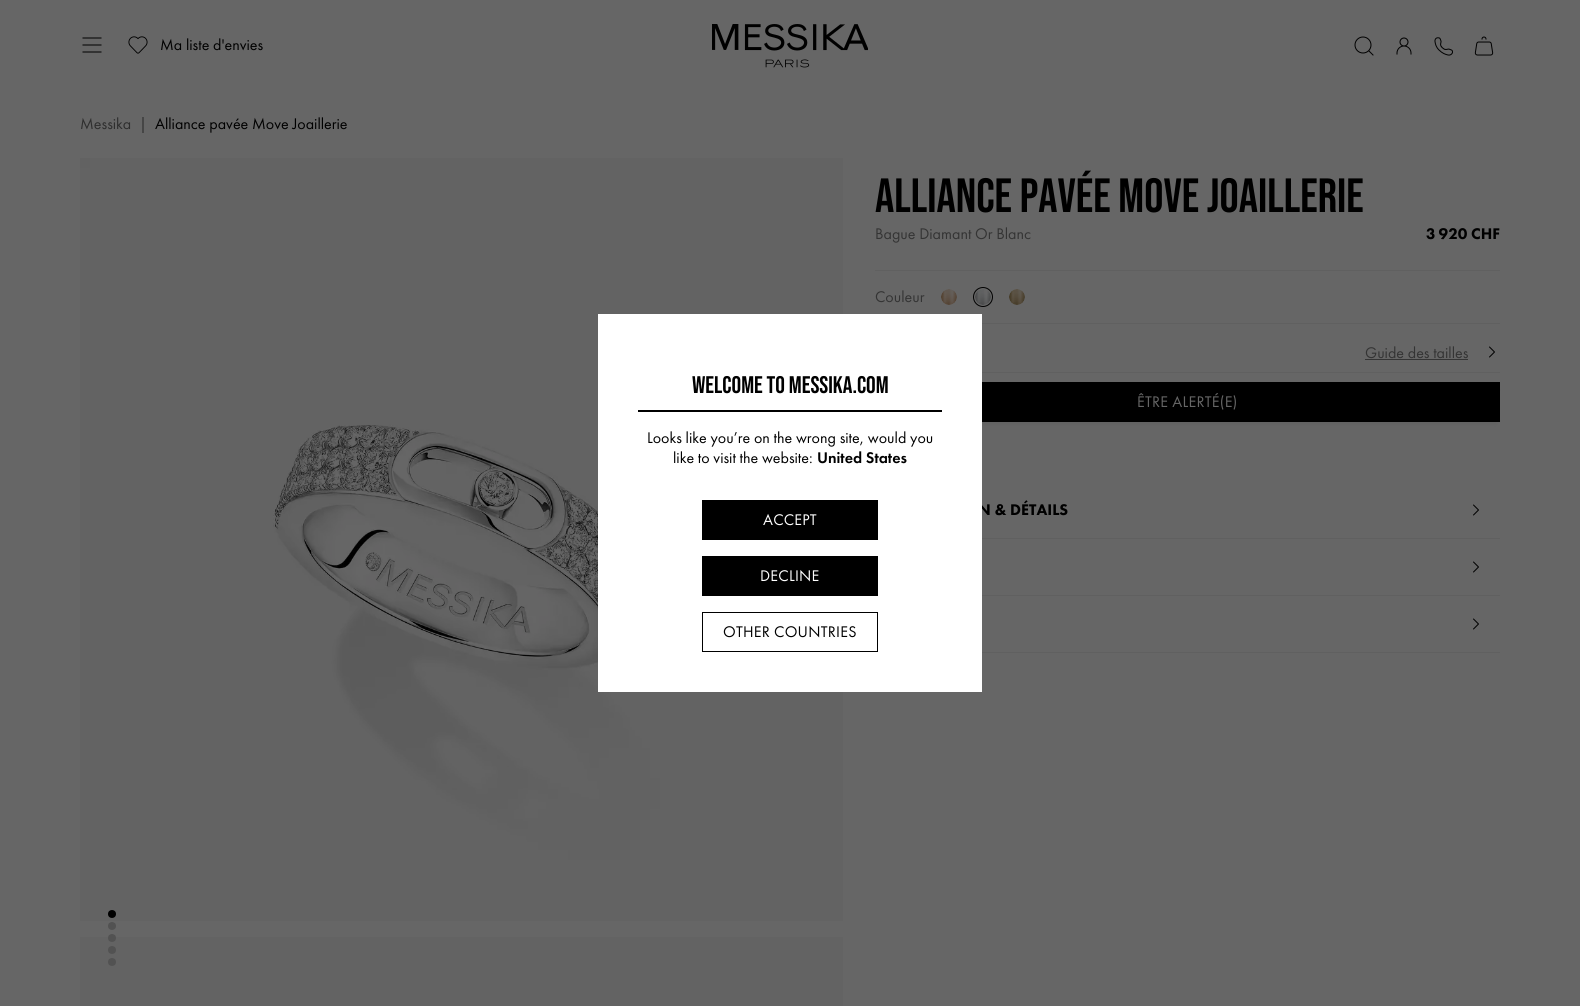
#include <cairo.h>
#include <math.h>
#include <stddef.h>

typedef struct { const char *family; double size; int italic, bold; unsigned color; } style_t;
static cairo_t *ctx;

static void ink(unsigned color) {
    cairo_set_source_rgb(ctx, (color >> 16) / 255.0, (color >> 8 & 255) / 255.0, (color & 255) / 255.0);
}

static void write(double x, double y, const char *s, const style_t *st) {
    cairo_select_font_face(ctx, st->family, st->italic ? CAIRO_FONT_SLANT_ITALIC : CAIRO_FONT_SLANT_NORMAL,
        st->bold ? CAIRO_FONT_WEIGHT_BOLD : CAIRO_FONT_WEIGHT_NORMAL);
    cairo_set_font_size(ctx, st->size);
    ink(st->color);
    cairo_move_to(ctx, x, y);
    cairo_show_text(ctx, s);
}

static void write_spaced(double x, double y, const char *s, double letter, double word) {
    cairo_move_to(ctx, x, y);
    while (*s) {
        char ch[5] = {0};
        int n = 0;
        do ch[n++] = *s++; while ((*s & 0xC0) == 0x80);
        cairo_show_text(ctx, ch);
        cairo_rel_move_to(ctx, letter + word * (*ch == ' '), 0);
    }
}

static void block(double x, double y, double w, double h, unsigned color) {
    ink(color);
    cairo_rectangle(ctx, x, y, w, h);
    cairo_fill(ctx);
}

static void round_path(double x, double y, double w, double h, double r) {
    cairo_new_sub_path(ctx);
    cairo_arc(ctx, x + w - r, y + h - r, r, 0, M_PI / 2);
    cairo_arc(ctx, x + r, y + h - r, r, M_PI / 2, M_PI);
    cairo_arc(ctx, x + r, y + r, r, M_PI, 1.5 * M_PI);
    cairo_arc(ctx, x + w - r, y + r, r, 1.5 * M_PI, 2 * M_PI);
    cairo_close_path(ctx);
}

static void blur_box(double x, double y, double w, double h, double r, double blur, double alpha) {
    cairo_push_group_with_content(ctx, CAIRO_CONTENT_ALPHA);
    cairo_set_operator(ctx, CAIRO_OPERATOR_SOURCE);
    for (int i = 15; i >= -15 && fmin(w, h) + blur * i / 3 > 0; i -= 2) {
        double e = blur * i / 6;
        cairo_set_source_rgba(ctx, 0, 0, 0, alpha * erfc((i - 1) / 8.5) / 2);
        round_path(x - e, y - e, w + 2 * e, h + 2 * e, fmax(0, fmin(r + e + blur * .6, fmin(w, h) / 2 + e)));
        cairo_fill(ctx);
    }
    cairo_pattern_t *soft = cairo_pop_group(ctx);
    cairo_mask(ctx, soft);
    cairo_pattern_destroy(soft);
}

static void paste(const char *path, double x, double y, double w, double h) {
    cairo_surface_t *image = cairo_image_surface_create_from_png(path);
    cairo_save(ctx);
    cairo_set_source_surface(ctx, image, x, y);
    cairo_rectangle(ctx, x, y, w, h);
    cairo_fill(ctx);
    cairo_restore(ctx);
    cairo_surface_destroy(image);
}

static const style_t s1 = {"Futura PT", 16, 0, 0, 0x000000};
static const style_t s2 = {"Futura PT", 16, 0, 0, 0x2e2e2e};
static const style_t s3 = {"Futura PT Black", 16, 0, 0, 0x000000};
static const style_t s4 = {"Bebas Neue", 24, 0, 0, 0x000000};
static const style_t s5 = {"Futura PT Medium", 16, 0, 0, 0x000000};
static const style_t s6 = {"Bebas Neue", 48, 0, 0, 0x000000};
static const style_t s7 = {"Futura PT", 16, 0, 0, 0x343434};

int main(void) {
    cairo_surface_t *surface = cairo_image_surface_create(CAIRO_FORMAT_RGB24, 1580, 1006);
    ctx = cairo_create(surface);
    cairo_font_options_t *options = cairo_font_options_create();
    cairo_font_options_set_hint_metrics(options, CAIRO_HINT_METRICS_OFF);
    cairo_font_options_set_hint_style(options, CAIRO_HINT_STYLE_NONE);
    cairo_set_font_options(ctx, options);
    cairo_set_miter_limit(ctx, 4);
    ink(0x666666);
    cairo_paint(ctx);
    paste("pic1.png", 82, 37, 20, 16);
    paste("pic2.png", 128, 36, 20, 18);
    write(160, 50, "Ma liste d'envies", &s1);
    paste("pic3.png", 712, 24, 156, 44);
    paste("pic4.png", 1354, 36, 20, 20);
    paste("pic5.png", 1396, 37, 16, 18);
    paste("pic6.png", 1434, 37, 19, 19);
    paste("pic7.png", 1474, 36, 20, 20);
    write(80, 129, "Messika", &s2);
    write(139, 129, "|", &s2);
    write(155, 129, "Alliance pavée Move Joaillerie", &s1);
    paste("pic8.png", 80, 158, 763, 763);
    ink(0x000000);
    blur_box(879, 389, 617, 33, 0, 3, 0.1);
    cairo_rectangle(ctx, 875.5, 382.5, 624, 39);
    ink(0x000000);
    cairo_set_line_width(ctx, 1);
    cairo_stroke(ctx);
    write(978, 515, "N & DÉTAILS", &s3);
    block(598, 314, 384, 378, 0xffffff);
    block(638, 410, 304, 2, 0x000000);
    write(692, 393, "Welcome to messika.com", &s4);
    write(647, 443, "Looks like you’re on the wrong site, would you", &s1);
    write(673, 463, "like to visit the website:", &s1);
    write(817, 463, "United States", &s5);
    cairo_rectangle(ctx, 702.5, 500.5, 175, 39);
    cairo_stroke(ctx);
    block(703, 501, 174, 38, 0x000000);
    cairo_select_font_face(ctx, "Futura PT", CAIRO_FONT_SLANT_NORMAL, CAIRO_FONT_WEIGHT_NORMAL);
    ink(0xffffff);
    write_spaced(763, 525, "ACCEPT", 0.25, 0);
    cairo_rectangle(ctx, 702.5, 556.5, 175, 39);
    ink(0x000000);
    cairo_stroke(ctx);
    block(703, 557, 174, 38, 0x000000);
    ink(0xffffff);
    write_spaced(760, 581, "DECLINE", 0.25, 0);
    cairo_rectangle(ctx, 702.5, 612.5, 175, 39);
    ink(0x000000);
    cairo_stroke(ctx);
    write_spaced(723, 637, "OTHER COUNTRIES", 0.25, 0);
    block(80, 937, 763, 69, 0x636363);
    ink(0x000000);
    cairo_new_path(ctx);
    cairo_arc(ctx, 112, 914, 4, 0, 2 * M_PI);
    cairo_fill(ctx);
    ink(0x525252);
    cairo_arc(ctx, 112, 926, 4, 0, 2 * M_PI);
    cairo_fill(ctx);
    cairo_arc(ctx, 112, 938, 4, 0, 2 * M_PI);
    cairo_fill(ctx);
    cairo_arc(ctx, 112, 950, 4, 0, 2 * M_PI);
    cairo_fill(ctx);
    cairo_arc(ctx, 112, 962, 4, 0, 2 * M_PI);
    cairo_fill(ctx);
    write(875, 212, "ALLIANCE PAVÉE MOVE JOAILLERIE", &s6);
    write(875, 239, "Bague Diamant Or Blanc", &s7);
    write(1426, 239, "3 920 CHF", &s3);
    block(875, 270, 625, 1, 0x606060);
    block(982, 323, 518, 1, 0x606060);
    write(875, 302, "Couleur", &s7);
    paste("pic9.png", 941, 289, 16, 16);
    cairo_arc(ctx, 983, 297, 9.5, 0, 2 * M_PI);
    ink(0x000000);
    cairo_stroke(ctx);
    paste("pic10.png", 975, 289, 16, 16);
    paste("pic11.png", 1009, 289, 16, 16);
    block(982, 372, 518, 1, 0x606060);
    cairo_new_path(ctx);
    cairo_move_to(ctx, 1489.5, 347);
    cairo_line_to(ctx, 1494.5, 352);
    cairo_line_to(ctx, 1489.5, 357);
    ink(0x000000);
    cairo_set_line_cap(ctx, CAIRO_LINE_CAP_ROUND);
    cairo_set_line_join(ctx, CAIRO_LINE_JOIN_ROUND);
    cairo_stroke(ctx);
    write(1365, 358, "Guide des tailles", &s7);
    block(1365, 359, 103, 1, 0x343434);
    block(982, 383, 517, 38, 0x000000);
    ink(0x666666);
    write_spaced(1137, 407, "ÊTRE ALERTÉ(E)", 0.25, 0);
    cairo_new_path(ctx);
    cairo_move_to(ctx, 1473.5, 505);
    cairo_line_to(ctx, 1478.5, 510);
    cairo_line_to(ctx, 1473.5, 515);
    ink(0x000000);
    cairo_stroke(ctx);
    block(982, 538, 518, 1, 0x606060);
    cairo_new_path(ctx);
    cairo_move_to(ctx, 1473.5, 562);
    cairo_line_to(ctx, 1478.5, 567);
    cairo_line_to(ctx, 1473.5, 572);
    ink(0x000000);
    cairo_stroke(ctx);
    block(982, 595, 518, 1, 0x606060);
    cairo_new_path(ctx);
    cairo_move_to(ctx, 1473.5, 619);
    cairo_line_to(ctx, 1478.5, 624);
    cairo_line_to(ctx, 1473.5, 629);
    ink(0x000000);
    cairo_stroke(ctx);
    block(982, 652, 518, 1, 0x606060);
    cairo_surface_write_to_png(surface, "screenshot.png");
    cairo_font_options_destroy(options);
    cairo_destroy(ctx);
    cairo_surface_destroy(surface);
    return 0;
}
